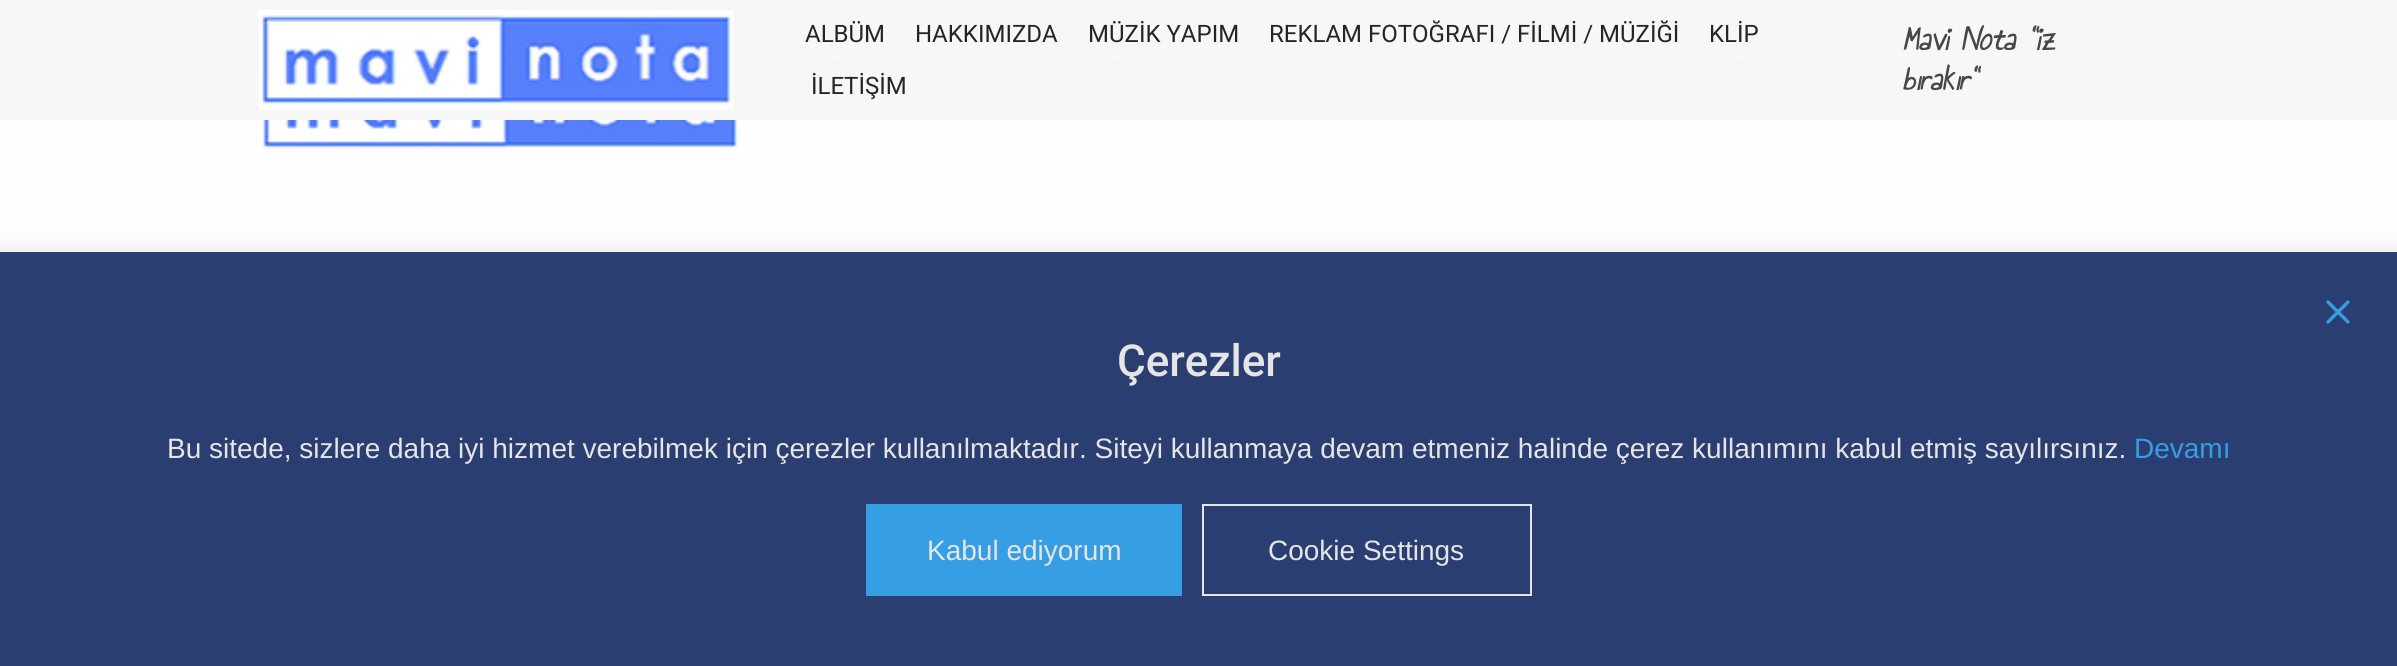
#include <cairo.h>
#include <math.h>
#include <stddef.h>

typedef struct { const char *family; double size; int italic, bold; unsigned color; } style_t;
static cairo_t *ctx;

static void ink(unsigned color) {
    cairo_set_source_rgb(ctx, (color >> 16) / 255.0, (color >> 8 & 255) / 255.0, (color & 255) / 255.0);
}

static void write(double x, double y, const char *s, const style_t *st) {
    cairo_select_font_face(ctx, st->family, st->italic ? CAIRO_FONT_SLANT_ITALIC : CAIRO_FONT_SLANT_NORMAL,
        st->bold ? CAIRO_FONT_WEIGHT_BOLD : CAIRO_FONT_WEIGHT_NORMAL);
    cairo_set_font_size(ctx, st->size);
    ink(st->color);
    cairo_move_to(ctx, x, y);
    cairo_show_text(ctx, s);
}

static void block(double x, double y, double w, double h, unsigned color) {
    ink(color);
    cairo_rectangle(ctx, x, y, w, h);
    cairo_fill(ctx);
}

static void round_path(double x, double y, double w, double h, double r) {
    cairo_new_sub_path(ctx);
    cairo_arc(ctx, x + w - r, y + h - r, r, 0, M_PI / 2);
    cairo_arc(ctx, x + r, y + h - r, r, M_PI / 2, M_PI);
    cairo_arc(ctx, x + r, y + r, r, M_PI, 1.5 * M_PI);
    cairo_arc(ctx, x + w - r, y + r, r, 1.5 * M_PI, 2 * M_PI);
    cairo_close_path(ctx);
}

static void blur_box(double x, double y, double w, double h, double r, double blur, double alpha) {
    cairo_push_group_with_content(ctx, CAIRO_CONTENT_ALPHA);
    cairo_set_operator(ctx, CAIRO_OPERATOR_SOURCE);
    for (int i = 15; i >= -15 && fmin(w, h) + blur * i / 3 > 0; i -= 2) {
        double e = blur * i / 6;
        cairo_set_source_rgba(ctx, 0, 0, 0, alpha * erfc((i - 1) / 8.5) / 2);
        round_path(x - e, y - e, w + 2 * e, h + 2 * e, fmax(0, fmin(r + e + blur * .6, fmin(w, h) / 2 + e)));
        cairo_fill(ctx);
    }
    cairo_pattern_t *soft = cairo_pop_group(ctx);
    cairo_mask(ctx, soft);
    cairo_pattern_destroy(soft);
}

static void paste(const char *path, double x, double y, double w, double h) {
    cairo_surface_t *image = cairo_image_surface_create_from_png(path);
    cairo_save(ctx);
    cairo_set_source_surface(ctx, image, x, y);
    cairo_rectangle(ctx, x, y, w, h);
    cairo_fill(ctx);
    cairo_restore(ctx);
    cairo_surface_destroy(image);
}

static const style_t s1 = {"Roboto", 24, 0, 0, 0x252525};
static const style_t s2 = {"Annie Use Your Telescope", 34, 1, 1, 0x474747};
static const style_t s3 = {"Roboto Medium", 44, 0, 0, 0xe5e5e5};
static const style_t s4 = {"Liberation Sans", 28, 0, 0, 0xe5e5e5};
static const style_t s5 = {"Liberation Sans", 28, 0, 0, 0x369ee3};

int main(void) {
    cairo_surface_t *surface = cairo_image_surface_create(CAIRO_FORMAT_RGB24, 2397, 666);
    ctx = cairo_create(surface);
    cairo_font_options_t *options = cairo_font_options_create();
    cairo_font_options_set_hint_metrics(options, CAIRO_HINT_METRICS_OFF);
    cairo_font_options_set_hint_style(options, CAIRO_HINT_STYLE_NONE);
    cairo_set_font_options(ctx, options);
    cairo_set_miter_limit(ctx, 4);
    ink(0xfefefe);
    cairo_paint(ctx);
    block(0, 0, 2397, 120, 0xf7f7f7);
    paste("pic1.png", 259, 10, 474, 100);
    write(805, 42, "ALBÜM", &s1);
    block(828, 56, 14, 2, 0xfafafa);
    write(915, 42, "HAKKIMIZDA", &s1);
    write(1088, 42, "MÜZİK YAPIM", &s1);
    block(1110, 56, 14, 2, 0xfafafa);
    write(1269, 42, "REKLAM FOTOĞRAFI / FİLMİ / MÜZİĞİ", &s1);
    write(1709, 42, "KLİP", &s1);
    block(1732, 56, 14, 2, 0xfafafa);
    write(811, 94, "İLETİŞİM", &s1);
    write(1902, 50, "Mavi Nota \"iz", &s2);
    write(1902, 90, "bırakır\"", &s2);
    paste("pic2.png", 263, 120, 475, 29);
    ink(0xdddddd);
    blur_box(-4, 254, 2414, 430, 0, 11, 1);
    block(0, 252, 2397, 414, 0x2a3e71);
    paste("pic3.png", 2326, 300, 24, 24);
    write(1117, 376, "Çerezler", &s3);
    write(167, 458, "Bu sitede, sizlere daha iyi hizmet verebilmek için çerezler kullanılmaktadır. Siteyi kullanmaya devam etmeniz halinde çerez kullanımını kabul etmiş sayılırsınız.", &s4);
    write(2134, 458, "Devamı", &s5);
    block(866, 504, 316, 92, 0x369ee3);
    write(927, 560, "Kabul ediyorum", &s4);
    cairo_rectangle(ctx, 1203, 505, 328, 90);
    cairo_stroke(ctx);
    write(1268, 560, "Cookie Settings", &s4);
    cairo_surface_write_to_png(surface, "screenshot.png");
    cairo_font_options_destroy(options);
    cairo_destroy(ctx);
    cairo_surface_destroy(surface);
    return 0;
}
